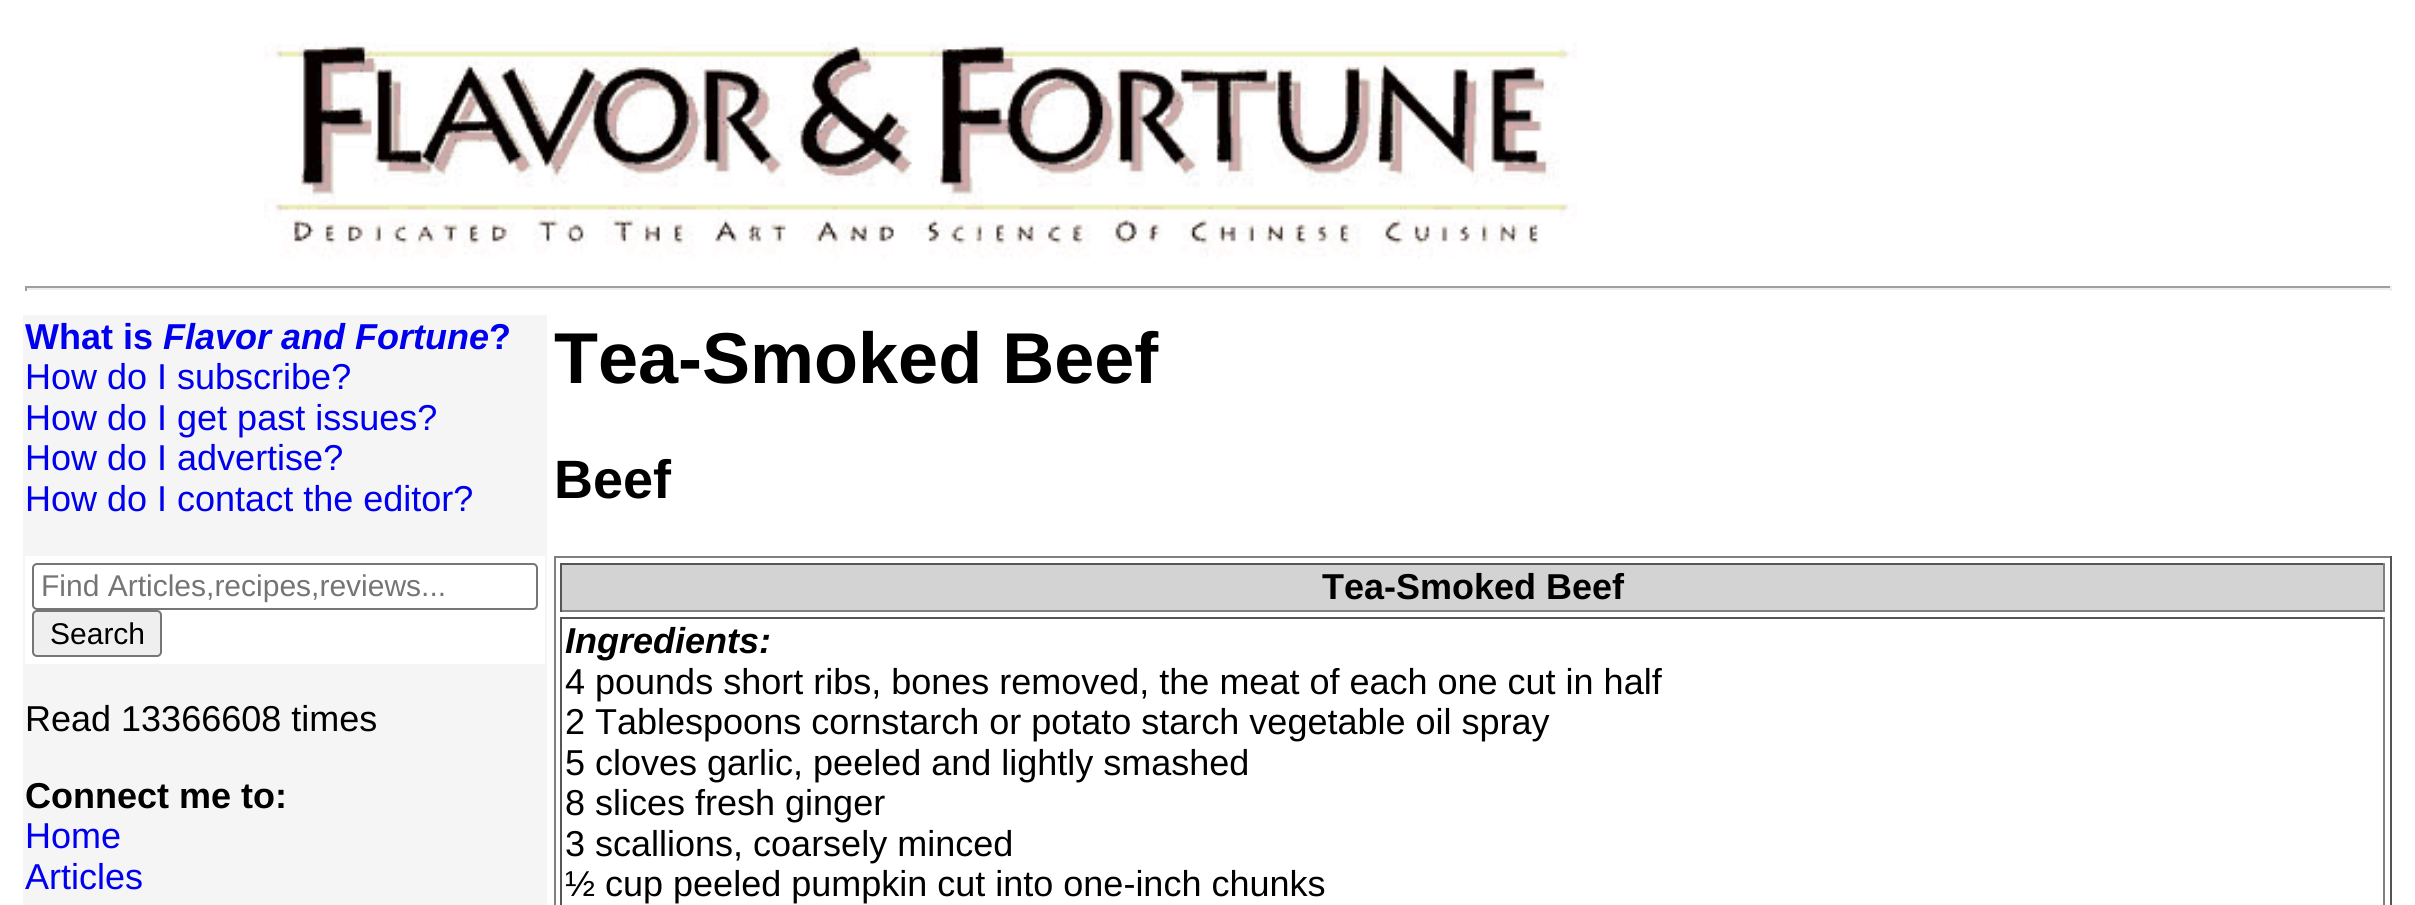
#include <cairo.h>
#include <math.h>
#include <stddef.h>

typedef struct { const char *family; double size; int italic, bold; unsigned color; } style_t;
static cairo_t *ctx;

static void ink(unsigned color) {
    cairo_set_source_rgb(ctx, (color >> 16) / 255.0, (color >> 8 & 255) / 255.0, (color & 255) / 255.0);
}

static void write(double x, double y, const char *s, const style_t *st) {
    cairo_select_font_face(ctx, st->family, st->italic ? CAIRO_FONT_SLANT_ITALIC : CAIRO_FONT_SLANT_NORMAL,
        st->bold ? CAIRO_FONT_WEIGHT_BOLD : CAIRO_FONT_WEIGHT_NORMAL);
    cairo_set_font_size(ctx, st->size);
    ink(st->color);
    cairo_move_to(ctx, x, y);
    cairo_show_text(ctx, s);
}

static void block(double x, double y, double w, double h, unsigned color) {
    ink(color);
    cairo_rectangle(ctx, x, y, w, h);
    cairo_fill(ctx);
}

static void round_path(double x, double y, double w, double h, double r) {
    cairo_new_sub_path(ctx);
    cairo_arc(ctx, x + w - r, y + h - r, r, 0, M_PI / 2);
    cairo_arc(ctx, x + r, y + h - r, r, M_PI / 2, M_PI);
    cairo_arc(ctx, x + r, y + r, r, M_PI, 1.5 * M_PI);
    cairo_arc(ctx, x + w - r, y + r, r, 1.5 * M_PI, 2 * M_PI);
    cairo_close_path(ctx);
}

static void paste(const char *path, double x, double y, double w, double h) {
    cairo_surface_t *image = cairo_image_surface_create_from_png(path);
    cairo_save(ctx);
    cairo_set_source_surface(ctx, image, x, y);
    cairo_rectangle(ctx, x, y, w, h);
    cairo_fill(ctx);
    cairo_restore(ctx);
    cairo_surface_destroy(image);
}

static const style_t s1 = {"Liberation Sans", 36, 0, 1, 0x0000ee};
static const style_t s2 = {"Liberation Sans", 36, 1, 1, 0x0000ee};
static const style_t s3 = {"Liberation Sans", 36, 0, 0, 0x0000ee};
static const style_t s4 = {"Liberation Sans", 30, 0, 0, 0x757575};
static const style_t s5 = {"Liberation Sans", 30, 0, 0, 0x000000};
static const style_t s6 = {"Liberation Sans", 36, 0, 0, 0x000000};
static const style_t s7 = {"Liberation Sans", 36, 0, 1, 0x000000};
static const style_t s8 = {"Liberation Sans", 72, 0, 1, 0x000000};
static const style_t s9 = {"Liberation Sans", 54, 0, 1, 0x000000};
static const style_t s10 = {"Liberation Sans", 36, 1, 1, 0x000000};

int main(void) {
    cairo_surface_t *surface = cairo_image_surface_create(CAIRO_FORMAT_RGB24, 2415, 905);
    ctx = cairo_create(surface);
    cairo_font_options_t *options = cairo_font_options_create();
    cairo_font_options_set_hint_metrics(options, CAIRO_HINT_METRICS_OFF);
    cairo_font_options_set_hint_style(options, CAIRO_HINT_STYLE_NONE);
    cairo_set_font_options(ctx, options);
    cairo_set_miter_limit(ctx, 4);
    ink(0xffffff);
    cairo_paint(ctx);
    paste("pic1.png", 264, 42, 1313, 217);
    block(25, 286, 2367, 2, 0x9f9f9f);
    block(2390, 286, 2, 5, 0xeeeeee);
    block(25, 288, 2367, 2, 0xeeeeee);
    block(25, 286, 2, 5, 0x9f9f9f);
    block(23, 315, 524, 590, 0xf5f5f5);
    write(25, 349, "What is", &s1);
    write(163, 349, "Flavor and Fortune", &s2);
    write(489, 349, "?", &s1);
    write(25, 389, "How do I subscribe?", &s3);
    write(25, 430, "How do I get past issues?", &s3);
    write(25, 470, "How do I advertise?", &s3);
    write(25, 511, "How do I contact the editor?", &s3);
    block(25, 556, 520, 108, 0xffffff);
    round_path(33, 564, 504, 45, 4);
    ink(0x767676);
    cairo_stroke(ctx);
    write(41, 596, "Find Articles,recipes,reviews...", &s4);
    ink(0xefefef);
    round_path(33, 611, 128, 45, 4);
    cairo_fill_preserve(ctx);
    ink(0x767676);
    cairo_stroke(ctx);
    write(50, 644, "Search", &s5);
    write(25, 731, "Read 13366608 times", &s6);
    write(25, 808, "Connect me to:", &s7);
    write(25, 848, "Home", &s3);
    write(25, 889, "Articles", &s3);
    write(554, 383, "Tea-Smoked Beef", &s8);
    write(554, 498, "Beef", &s9);
    block(554, 556, 1838, 2, 0x808080);
    block(2390, 556, 2, 349, 0x555555);
    block(554, 556, 2, 349, 0x808080);
    block(562, 565, 1821, 45, 0xd3d3d3);
    block(560, 563, 1825, 2, 0x555555);
    block(2383, 563, 2, 49, 0x808080);
    block(560, 610, 1825, 2, 0x808080);
    block(560, 563, 2, 49, 0x555555);
    write(1322, 599, "Tea-Smoked Beef", &s7);
    block(560, 617, 1825, 2, 0x555555);
    block(2383, 617, 2, 288, 0x808080);
    block(560, 617, 2, 288, 0x555555);
    write(565, 653, "Ingredients:", &s10);
    write(565, 694, "4 pounds short ribs, bones removed, the meat of each one cut in half", &s6);
    write(565, 734, "2 Tablespoons cornstarch or potato starch vegetable oil spray", &s6);
    write(565, 775, "5 cloves garlic, peeled and lightly smashed", &s6);
    write(565, 815, "8 slices fresh ginger", &s6);
    write(565, 856, "3 scallions, coarsely minced", &s6);
    write(565, 896, "½ cup peeled pumpkin cut into one-inch chunks", &s6);
    cairo_surface_write_to_png(surface, "screenshot.png");
    cairo_font_options_destroy(options);
    cairo_destroy(ctx);
    cairo_surface_destroy(surface);
    return 0;
}
